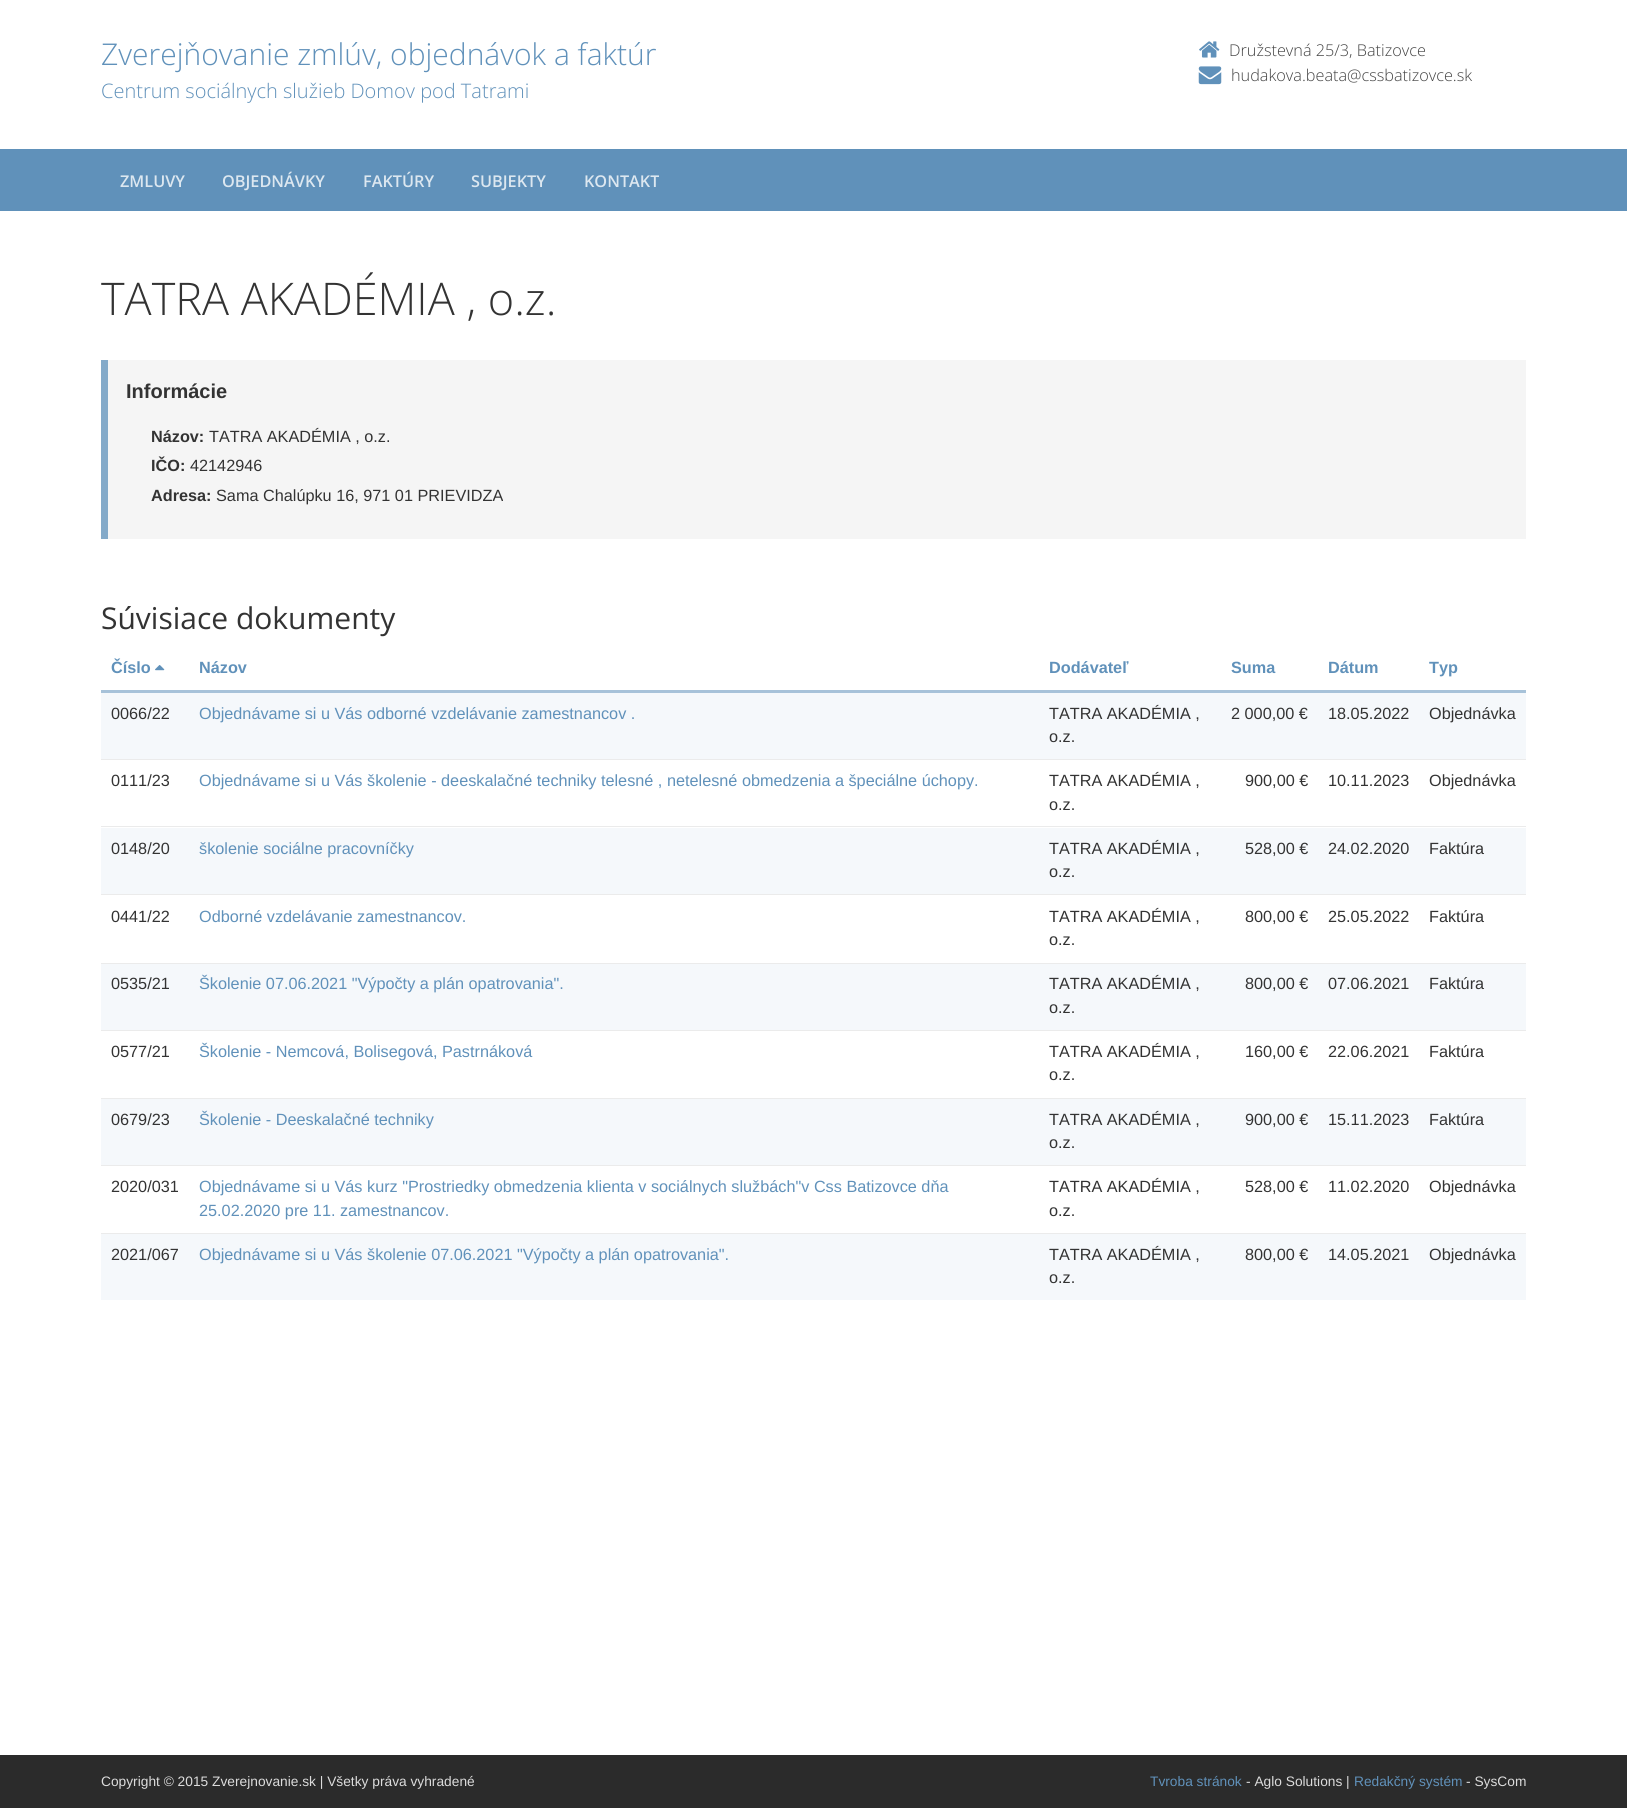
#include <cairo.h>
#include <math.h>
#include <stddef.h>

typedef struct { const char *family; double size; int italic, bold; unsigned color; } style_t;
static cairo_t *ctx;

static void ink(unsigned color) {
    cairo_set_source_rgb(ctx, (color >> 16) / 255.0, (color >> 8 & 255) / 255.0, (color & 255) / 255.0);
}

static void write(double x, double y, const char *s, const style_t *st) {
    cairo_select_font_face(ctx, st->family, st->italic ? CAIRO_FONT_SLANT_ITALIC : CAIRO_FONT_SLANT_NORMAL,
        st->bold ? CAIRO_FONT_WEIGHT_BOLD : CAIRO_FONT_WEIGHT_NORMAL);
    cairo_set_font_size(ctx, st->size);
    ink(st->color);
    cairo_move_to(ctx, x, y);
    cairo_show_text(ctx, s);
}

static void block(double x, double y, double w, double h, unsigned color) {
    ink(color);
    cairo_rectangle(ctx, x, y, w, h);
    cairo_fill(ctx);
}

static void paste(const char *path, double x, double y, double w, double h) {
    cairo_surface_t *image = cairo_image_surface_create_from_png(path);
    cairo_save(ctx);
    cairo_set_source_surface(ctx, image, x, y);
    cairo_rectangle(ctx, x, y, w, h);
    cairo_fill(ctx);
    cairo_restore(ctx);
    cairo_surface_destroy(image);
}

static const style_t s1 = {"Open Sans Light", 30, 0, 0, 0x6091ba};
static const style_t s2 = {"Open Sans Light", 20, 0, 0, 0x6091ba};
static const style_t s3 = {"Open Sans Light", 16.25, 0, 0, 0x444444};
static const style_t s4 = {"Open Sans SemiBold", 16.25, 0, 0, 0xdce7f0};
static const style_t s5 = {"Open Sans Light", 45, 0, 0, 0x333333};
static const style_t s6 = {"Liberation Sans", 20, 0, 1, 0x333333};
static const style_t s7 = {"Liberation Sans", 16.25, 0, 1, 0x333333};
static const style_t s8 = {"Liberation Sans", 16.25, 0, 0, 0x333333};
static const style_t s9 = {"Open Sans", 30, 0, 0, 0x333333};
static const style_t s10 = {"Liberation Sans", 16.25, 0, 1, 0x6091ba};
static const style_t s11 = {"Liberation Sans", 16.25, 0, 0, 0x6091ba};
static const style_t s12 = {"Liberation Sans", 13.75, 0, 0, 0xdcdcdc};
static const style_t s13 = {"Liberation Sans", 13.75, 0, 0, 0x6091ba};

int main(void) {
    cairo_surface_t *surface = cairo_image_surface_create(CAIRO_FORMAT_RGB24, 1627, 1808);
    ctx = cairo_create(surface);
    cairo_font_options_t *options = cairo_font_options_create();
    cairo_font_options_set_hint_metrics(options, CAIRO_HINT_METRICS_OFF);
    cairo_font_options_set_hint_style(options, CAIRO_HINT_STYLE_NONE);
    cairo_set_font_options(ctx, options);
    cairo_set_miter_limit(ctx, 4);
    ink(0xffffff);
    cairo_paint(ctx);
    write(101, 65, "Zverejňovanie zmlúv, objednávok a faktúr", &s1);
    write(101, 98, "Centrum sociálnych služieb Domov pod Tatrami", &s2);
    paste("pic1.png", 1199, 41, 21, 17);
    write(1229, 56, "Družstevná 25/3, Batizovce", &s3);
    paste("pic2.png", 1198, 66, 24, 19);
    write(1231, 81, "hudakova.beata@cssbatizovce.sk", &s3);
    block(0, 149, 1627, 62, 0x6091ba);
    write(120, 187, "ZMLUVY", &s4);
    write(222, 187, "OBJEDNÁVKY", &s4);
    write(363, 187, "FAKTÚRY", &s4);
    write(471, 187, "SUBJEKTY", &s4);
    write(584, 187, "KONTAKT", &s4);
    write(101, 315, "TATRA AKADÉMIA , o.z.", &s5);
    block(108, 360, 1418, 179, 0xf5f5f5);
    block(101, 360, 7, 179, 0x84aac9);
    write(126, 398, "Informácie", &s6);
    write(151, 442, "Názov:", &s7);
    write(209, 442, "TATRA AKADÉMIA , o.z.", &s8);
    write(151, 471, "IČO:", &s7);
    write(190, 471, "42142946", &s8);
    write(151, 501, "Adresa:", &s7);
    write(216, 501, "Sama Chalúpku 16, 971 01 PRIEVIDZA", &s8);
    write(101, 629, "Súvisiace dokumenty", &s9);
    write(111, 673, "Číslo", &s10);
    paste("pic3.png", 155, 665, 10, 6);
    write(199, 673, "Názov", &s10);
    write(1049, 673, "Dodávateľ", &s10);
    write(1231, 673, "Suma", &s10);
    write(1328, 673, "Dátum", &s10);
    block(101, 690, 1425, 3, 0xa7c2d9);
    write(1429, 673, "Typ", &s10);
    block(101, 693, 1425, 66, 0xf5f8fb);
    write(111, 719, "0066/22", &s8);
    write(199, 719, "Objednávame si u Vás odborné vzdelávanie zamestnancov .", &s11);
    write(1049, 719, "TATRA AKADÉMIA ,", &s8);
    write(1049, 742, "o.z.", &s8);
    write(1231, 719, "2 000,00 €", &s8);
    write(1328, 719, "18.05.2022", &s8);
    write(1429, 719, "Objednávka", &s8);
    write(111, 786, "0111/23", &s8);
    write(199, 786, "Objednávame si u Vás školenie - deeskalačné techniky telesné , netelesné obmedzenia a špeciálne úchopy.", &s11);
    write(1049, 786, "TATRA AKADÉMIA ,", &s8);
    write(1049, 810, "o.z.", &s8);
    write(1245, 786, "900,00 €", &s8);
    write(1328, 786, "10.11.2023", &s8);
    block(101, 759, 1425, 1, 0xebebeb);
    write(1429, 786, "Objednávka", &s8);
    block(101, 828, 1425, 66, 0xf5f8fb);
    write(111, 854, "0148/20", &s8);
    write(199, 854, "školenie sociálne pracovníčky", &s11);
    write(1049, 854, "TATRA AKADÉMIA ,", &s8);
    write(1049, 877, "o.z.", &s8);
    write(1245, 854, "528,00 €", &s8);
    write(1328, 854, "24.02.2020", &s8);
    block(101, 826, 1425, 1, 0xebebeb);
    write(1429, 854, "Faktúra", &s8);
    write(111, 922, "0441/22", &s8);
    write(199, 922, "Odborné vzdelávanie zamestnancov.", &s11);
    write(1049, 922, "TATRA AKADÉMIA ,", &s8);
    write(1049, 945, "o.z.", &s8);
    write(1245, 922, "800,00 €", &s8);
    write(1328, 922, "25.05.2022", &s8);
    block(101, 894, 1425, 1, 0xebebeb);
    write(1429, 922, "Faktúra", &s8);
    block(101, 964, 1425, 66, 0xf5f8fb);
    write(111, 989, "0535/21", &s8);
    write(199, 989, "Školenie 07.06.2021 \"Výpočty a plán opatrovania\".", &s11);
    write(1049, 989, "TATRA AKADÉMIA ,", &s8);
    write(1049, 1013, "o.z.", &s8);
    write(1245, 989, "800,00 €", &s8);
    write(1328, 989, "07.06.2021", &s8);
    block(101, 963, 1425, 1, 0xebebeb);
    write(1429, 989, "Faktúra", &s8);
    write(111, 1057, "0577/21", &s8);
    write(199, 1057, "Školenie - Nemcová, Bolisegová, Pastrnáková", &s11);
    write(1049, 1057, "TATRA AKADÉMIA ,", &s8);
    write(1049, 1080, "o.z.", &s8);
    write(1245, 1057, "160,00 €", &s8);
    write(1328, 1057, "22.06.2021", &s8);
    block(101, 1030, 1425, 1, 0xebebeb);
    write(1429, 1057, "Faktúra", &s8);
    block(101, 1099, 1425, 66, 0xf5f8fb);
    write(111, 1125, "0679/23", &s8);
    write(199, 1125, "Školenie - Deeskalačné techniky", &s11);
    write(1049, 1125, "TATRA AKADÉMIA ,", &s8);
    write(1049, 1148, "o.z.", &s8);
    write(1245, 1125, "900,00 €", &s8);
    write(1328, 1125, "15.11.2023", &s8);
    block(101, 1098, 1425, 1, 0xebebeb);
    write(1429, 1125, "Faktúra", &s8);
    write(111, 1192, "2020/031", &s8);
    write(199, 1192, "Objednávame si u Vás kurz \"Prostriedky obmedzenia klienta v sociálnych službách\"v Css Batizovce dňa", &s11);
    write(199, 1216, "25.02.2020 pre 11. zamestnancov.", &s11);
    write(1049, 1192, "TATRA AKADÉMIA ,", &s8);
    write(1049, 1216, "o.z.", &s8);
    write(1245, 1192, "528,00 €", &s8);
    write(1328, 1192, "11.02.2020", &s8);
    block(101, 1165, 1425, 1, 0xebebeb);
    write(1429, 1192, "Objednávka", &s8);
    block(101, 1234, 1425, 66, 0xf5f8fb);
    write(111, 1260, "2021/067", &s8);
    write(199, 1260, "Objednávame si u Vás školenie 07.06.2021 \"Výpočty a plán opatrovania\".", &s11);
    write(1049, 1260, "TATRA AKADÉMIA ,", &s8);
    write(1049, 1283, "o.z.", &s8);
    write(1245, 1260, "800,00 €", &s8);
    write(1328, 1260, "14.05.2021", &s8);
    block(101, 1233, 1425, 1, 0xebebeb);
    write(1429, 1260, "Objednávka", &s8);
    block(0, 1755, 1627, 53, 0x2b2b2b);
    write(101, 1786, "Copyright © 2015 Zverejnovanie.sk | Všetky práva vyhradené", &s12);
    write(1150, 1786, "Tvroba stránok", &s13);
    write(1246, 1786, "- Aglo Solutions |", &s12);
    write(1354, 1786, "Redakčný systém", &s13);
    write(1466, 1786, "- SysCom", &s12);
    cairo_surface_write_to_png(surface, "screenshot.png");
    cairo_font_options_destroy(options);
    cairo_destroy(ctx);
    cairo_surface_destroy(surface);
    return 0;
}
